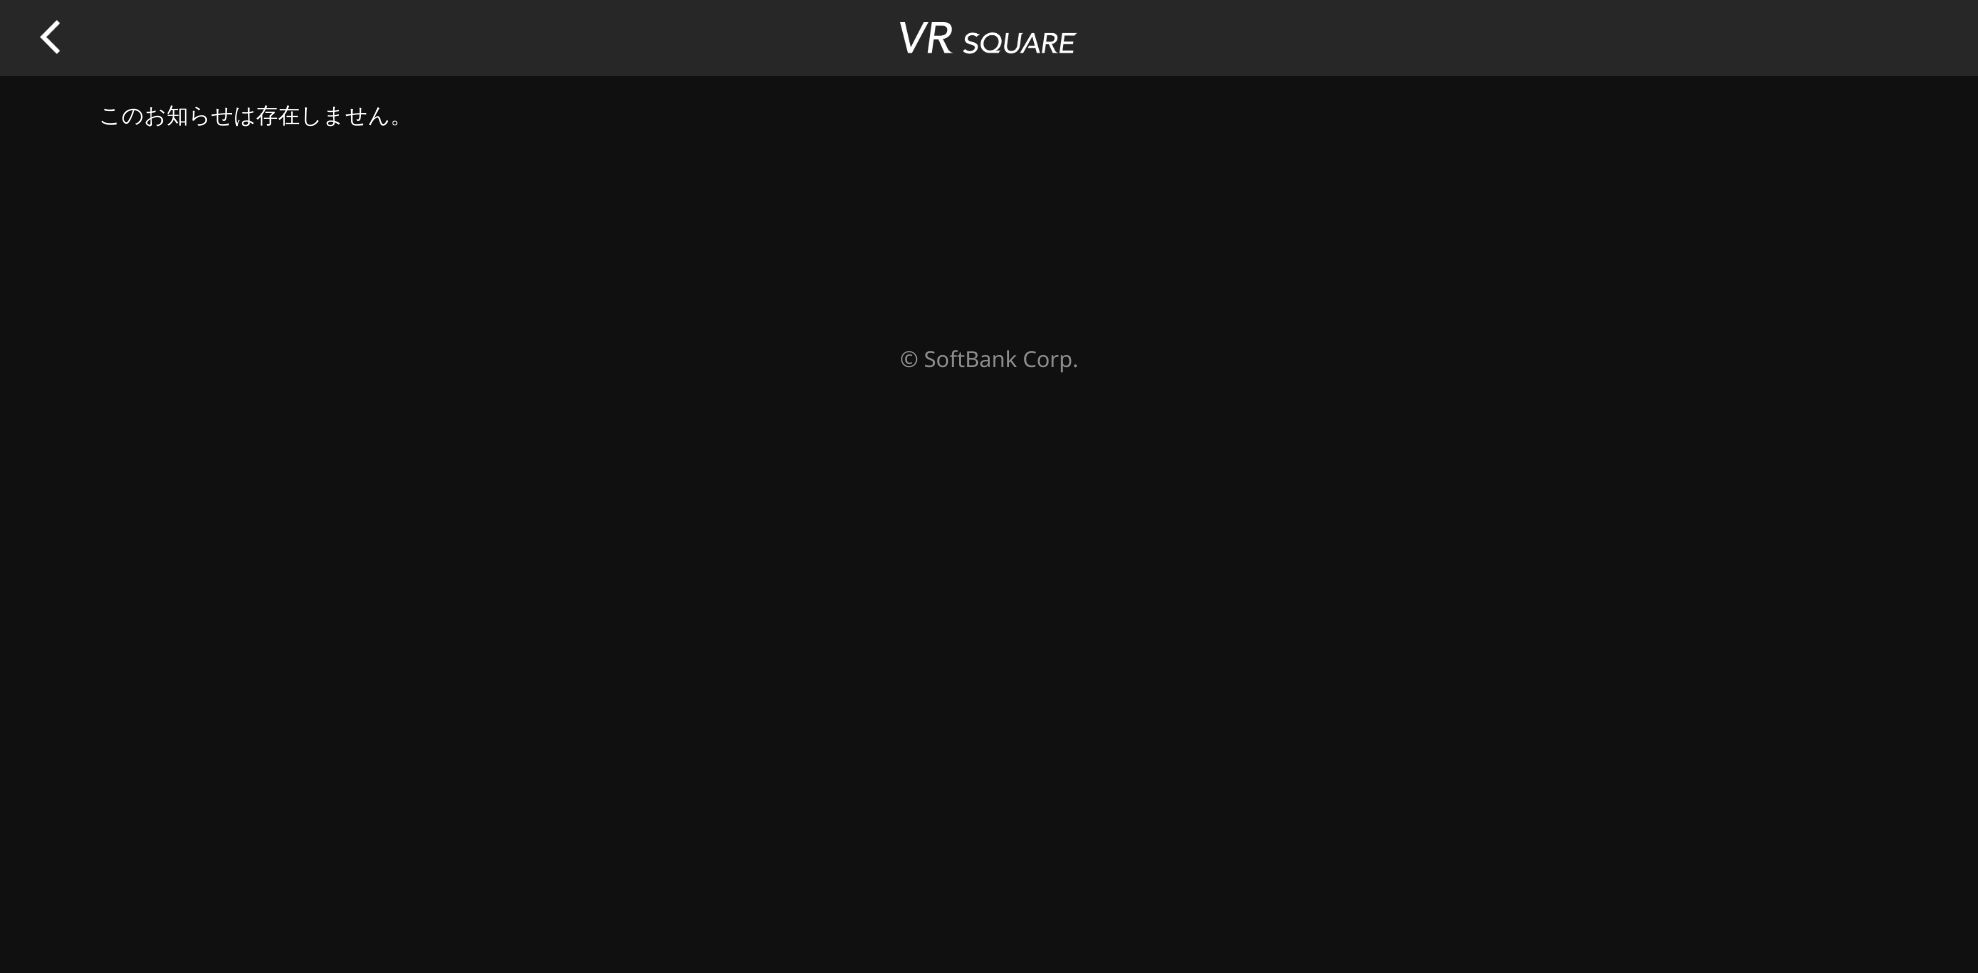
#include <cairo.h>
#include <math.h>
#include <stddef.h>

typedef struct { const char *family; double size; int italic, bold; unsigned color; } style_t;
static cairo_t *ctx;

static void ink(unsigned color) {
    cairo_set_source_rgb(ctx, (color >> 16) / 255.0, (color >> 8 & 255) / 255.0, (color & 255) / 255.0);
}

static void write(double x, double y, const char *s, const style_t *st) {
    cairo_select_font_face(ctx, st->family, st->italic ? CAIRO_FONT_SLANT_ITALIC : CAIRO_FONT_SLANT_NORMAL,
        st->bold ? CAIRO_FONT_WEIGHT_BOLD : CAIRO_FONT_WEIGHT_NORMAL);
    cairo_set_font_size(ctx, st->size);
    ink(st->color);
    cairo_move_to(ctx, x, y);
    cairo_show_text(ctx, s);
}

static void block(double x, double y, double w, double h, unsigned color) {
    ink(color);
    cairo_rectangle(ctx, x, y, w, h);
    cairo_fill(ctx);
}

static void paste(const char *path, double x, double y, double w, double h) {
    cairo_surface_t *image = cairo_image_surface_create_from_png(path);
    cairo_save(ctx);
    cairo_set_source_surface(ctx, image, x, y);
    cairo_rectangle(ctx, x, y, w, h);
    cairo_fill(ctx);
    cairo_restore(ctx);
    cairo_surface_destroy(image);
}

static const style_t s1 = {"WenQuanYi Zen Hei Medium", 22, 0, 0, 0xffffff};
static const style_t s2 = {"Noto Sans", 22, 0, 0, 0x8b8b8b};

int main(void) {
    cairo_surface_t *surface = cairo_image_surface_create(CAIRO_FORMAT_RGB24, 1978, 973);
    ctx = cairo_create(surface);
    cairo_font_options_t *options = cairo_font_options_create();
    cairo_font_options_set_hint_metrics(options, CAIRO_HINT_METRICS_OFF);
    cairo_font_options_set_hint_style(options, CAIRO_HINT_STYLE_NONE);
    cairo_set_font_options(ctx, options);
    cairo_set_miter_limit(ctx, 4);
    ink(0x101010);
    cairo_paint(ctx);
    block(0, 0, 1978, 76, 0x272727);
    paste("pic1.png", 40, 20, 20, 34);
    paste("pic2.png", 900, 22, 178, 32);
    write(99, 123, "このお知らせは存在しません。", &s1);
    write(900, 367, "© SoftBank Corp.", &s2);
    cairo_surface_write_to_png(surface, "screenshot.png");
    cairo_font_options_destroy(options);
    cairo_destroy(ctx);
    cairo_surface_destroy(surface);
    return 0;
}
